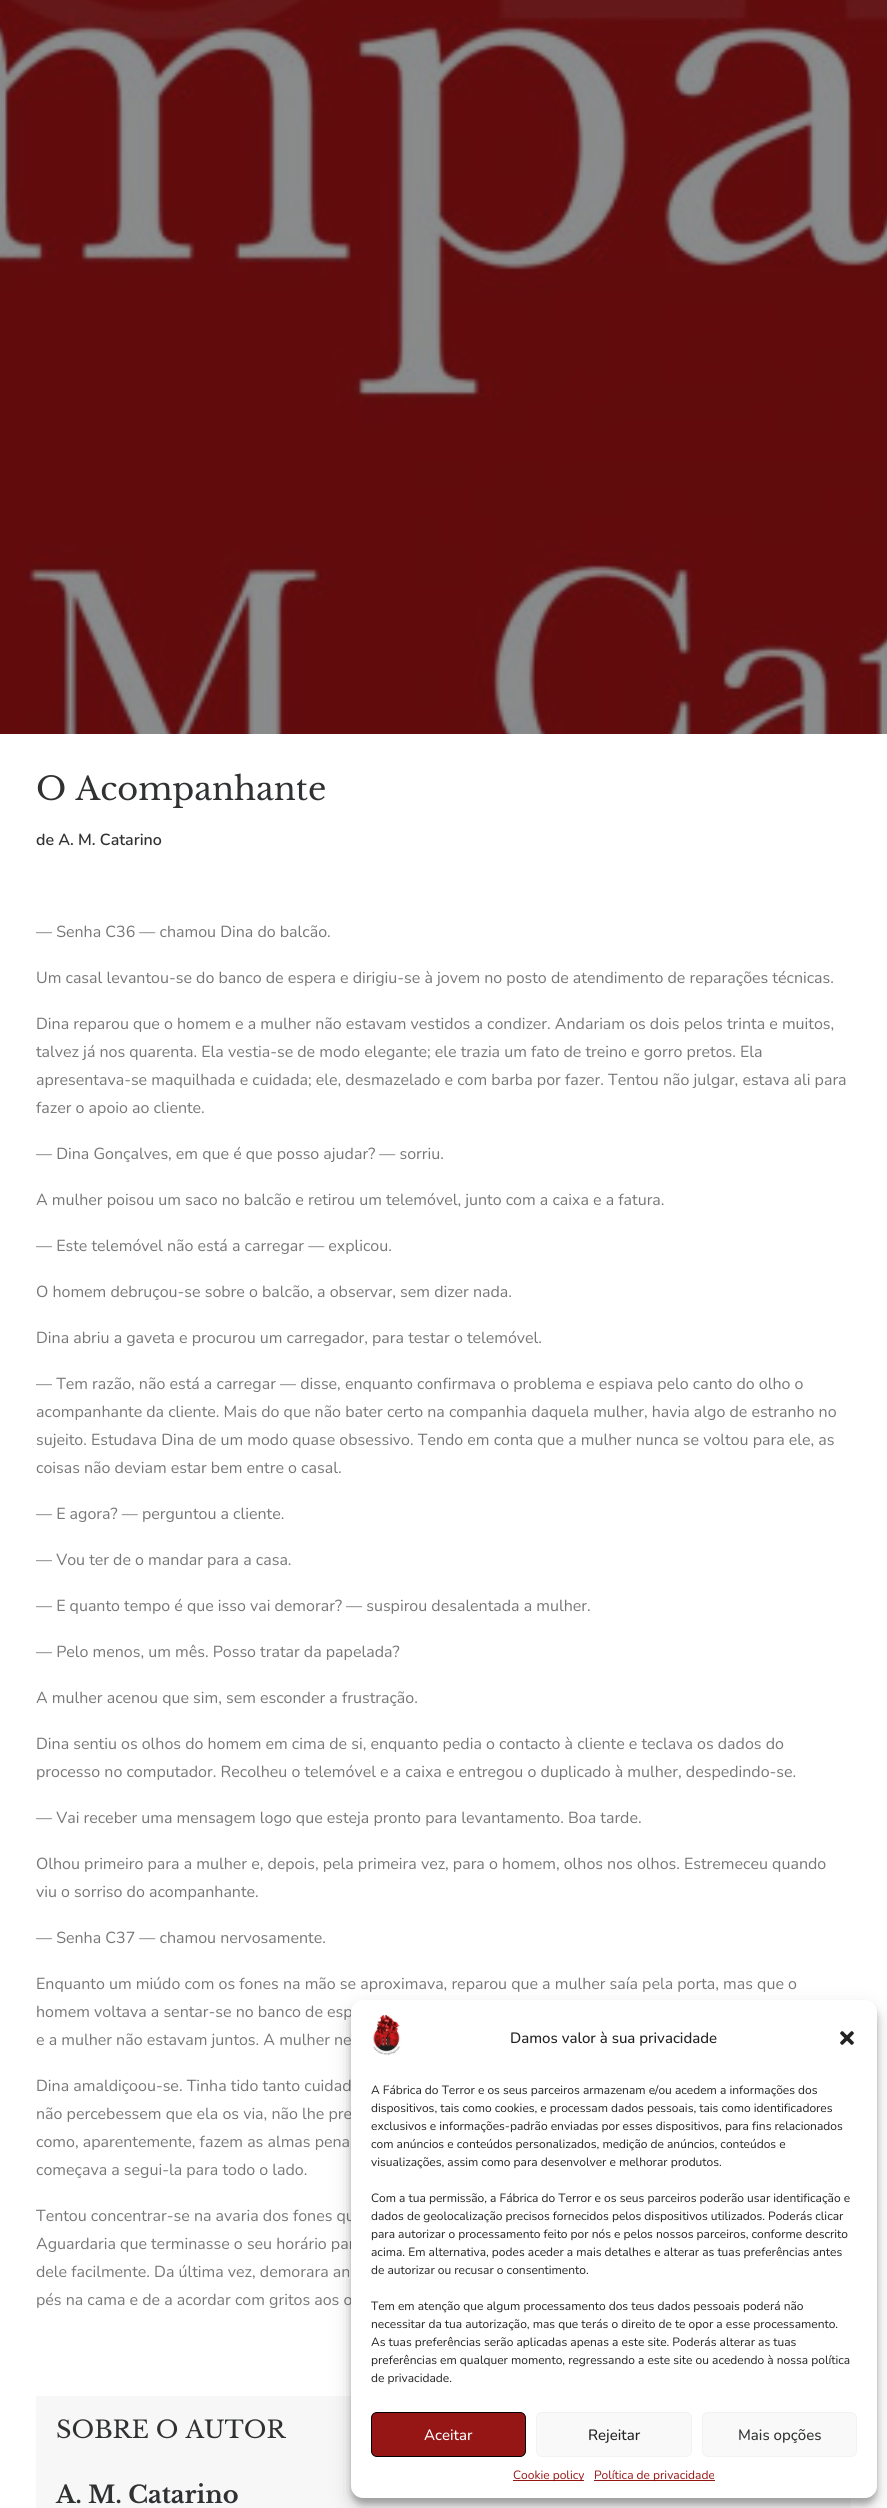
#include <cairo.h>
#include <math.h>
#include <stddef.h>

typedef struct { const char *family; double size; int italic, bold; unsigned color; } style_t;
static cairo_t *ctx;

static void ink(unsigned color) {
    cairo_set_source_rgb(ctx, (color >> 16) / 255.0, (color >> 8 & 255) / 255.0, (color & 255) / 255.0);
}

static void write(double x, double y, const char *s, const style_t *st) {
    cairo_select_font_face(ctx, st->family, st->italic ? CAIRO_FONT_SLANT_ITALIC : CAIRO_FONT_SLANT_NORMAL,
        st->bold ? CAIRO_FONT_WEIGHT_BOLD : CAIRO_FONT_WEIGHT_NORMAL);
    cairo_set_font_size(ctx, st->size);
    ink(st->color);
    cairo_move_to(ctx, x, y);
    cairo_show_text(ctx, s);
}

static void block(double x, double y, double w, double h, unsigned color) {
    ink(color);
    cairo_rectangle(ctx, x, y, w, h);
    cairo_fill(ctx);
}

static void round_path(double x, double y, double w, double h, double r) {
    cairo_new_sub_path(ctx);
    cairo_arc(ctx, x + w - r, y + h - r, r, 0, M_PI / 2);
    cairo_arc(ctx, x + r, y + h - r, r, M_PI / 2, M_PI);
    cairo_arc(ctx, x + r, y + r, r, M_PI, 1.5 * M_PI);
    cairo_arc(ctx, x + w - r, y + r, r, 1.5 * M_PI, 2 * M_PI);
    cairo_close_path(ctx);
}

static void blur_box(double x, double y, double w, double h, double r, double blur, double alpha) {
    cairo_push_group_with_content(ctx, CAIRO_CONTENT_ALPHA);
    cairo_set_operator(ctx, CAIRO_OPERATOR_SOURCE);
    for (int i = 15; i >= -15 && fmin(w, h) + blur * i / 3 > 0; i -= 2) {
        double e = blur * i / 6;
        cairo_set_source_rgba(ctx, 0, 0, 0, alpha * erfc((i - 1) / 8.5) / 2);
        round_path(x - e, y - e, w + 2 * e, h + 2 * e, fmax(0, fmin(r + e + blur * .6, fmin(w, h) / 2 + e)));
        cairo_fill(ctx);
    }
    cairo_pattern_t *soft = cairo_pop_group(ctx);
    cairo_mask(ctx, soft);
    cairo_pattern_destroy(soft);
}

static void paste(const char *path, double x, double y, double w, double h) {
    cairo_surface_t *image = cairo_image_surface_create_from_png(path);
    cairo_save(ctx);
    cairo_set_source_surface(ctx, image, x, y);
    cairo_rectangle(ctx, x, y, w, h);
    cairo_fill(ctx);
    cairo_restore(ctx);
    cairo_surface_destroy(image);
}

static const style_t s1 = {"Libre Baskerville", 32, 0, 0, 0x303133};
static const style_t s2 = {"Nunito SemiBold", 16, 0, 0, 0x303133};
static const style_t s3 = {"Nunito", 16, 0, 0, 0x777777};
static const style_t s4 = {"Libre Baskerville", 24, 0, 0, 0x303133};
static const style_t s5 = {"Libre Baskerville", 24, 0, 1, 0x303133};
static const style_t s6 = {"Nunito Medium", 15, 0, 0, 0x222222};
static const style_t s7 = {"Nunito", 12, 0, 0, 0x222222};
static const style_t s8 = {"Nunito Medium", 15, 0, 0, 0xffffff};
static const style_t s9 = {"Nunito Medium", 15, 0, 0, 0x303133};
static const style_t s10 = {"Nunito", 12, 0, 0, 0x961515};

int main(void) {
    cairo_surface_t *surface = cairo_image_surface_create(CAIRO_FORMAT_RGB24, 887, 2508);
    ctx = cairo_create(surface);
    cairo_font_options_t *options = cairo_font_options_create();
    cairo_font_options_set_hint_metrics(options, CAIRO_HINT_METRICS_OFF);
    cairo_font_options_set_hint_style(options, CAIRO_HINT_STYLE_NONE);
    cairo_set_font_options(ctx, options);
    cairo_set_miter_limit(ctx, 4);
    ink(0xffffff);
    cairo_paint(ctx);
    paste("pic1.png", 0, 0, 887, 734);
    write(36, 800, "O Acompanhante", &s1);
    write(36, 845, "de A. M. Catarino", &s2);
    write(36, 937, "— Senha C36 — chamou Dina do balcão.", &s3);
    write(36, 983, "Um casal levantou-se do banco de espera e dirigiu-se à jovem no posto de atendimento de reparações técnicas.", &s3);
    write(36, 1029, "Dina reparou que o homem e a mulher não estavam vestidos a condizer. Andariam os dois pelos trinta e muitos,", &s3);
    write(36, 1057, "talvez já nos quarenta. Ela vestia-se de modo elegante; ele trazia um fato de treino e gorro pretos. Ela", &s3);
    write(36, 1085, "apresentava-se maquilhada e cuidada; ele, desmazelado e com barba por fazer. Tentou não julgar, estava ali para", &s3);
    write(36, 1113, "fazer o apoio ao cliente.", &s3);
    write(36, 1159, "— Dina Gonçalves, em que é que posso ajudar? — sorriu.", &s3);
    write(36, 1205, "A mulher poisou um saco no balcão e retirou um telemóvel, junto com a caixa e a fatura.", &s3);
    write(36, 1251, "— Este telemóvel não está a carregar — explicou.", &s3);
    write(36, 1297, "O homem debruçou-se sobre o balcão, a observar, sem dizer nada.", &s3);
    write(36, 1343, "Dina abriu a gaveta e procurou um carregador, para testar o telemóvel.", &s3);
    write(36, 1389, "— Tem razão, não está a carregar — disse, enquanto confirmava o problema e espiava pelo canto do olho o", &s3);
    write(36, 1417, "acompanhante da cliente. Mais do que não bater certo na companhia daquela mulher, havia algo de estranho no", &s3);
    write(36, 1445, "sujeito. Estudava Dina de um modo quase obsessivo. Tendo em conta que a mulher nunca se voltou para ele, as", &s3);
    write(36, 1473, "coisas não deviam estar bem entre o casal.", &s3);
    write(36, 1519, "— E agora? — perguntou a cliente.", &s3);
    write(36, 1565, "— Vou ter de o mandar para a casa.", &s3);
    write(36, 1611, "— E quanto tempo é que isso vai demorar? — suspirou desalentada a mulher.", &s3);
    write(36, 1657, "— Pelo menos, um mês. Posso tratar da papelada?", &s3);
    write(36, 1703, "A mulher acenou que sim, sem esconder a frustração.", &s3);
    write(36, 1749, "Dina sentiu os olhos do homem em cima de si, enquanto pedia o contacto à cliente e teclava os dados do", &s3);
    write(36, 1777, "processo no computador. Recolheu o telemóvel e a caixa e entregou o duplicado à mulher, despedindo-se.", &s3);
    write(36, 1823, "— Vai receber uma mensagem logo que esteja pronto para levantamento. Boa tarde.", &s3);
    write(36, 1869, "Olhou primeiro para a mulher e, depois, pela primeira vez, para o homem, olhos nos olhos. Estremeceu quando", &s3);
    write(36, 1897, "viu o sorriso do acompanhante.", &s3);
    write(36, 1943, "— Senha C37 — chamou nervosamente.", &s3);
    write(36, 1989, "Enquanto um miúdo com os fones na mão se aproximava, reparou que a mulher saía pela porta, mas que o", &s3);
    write(36, 2017, "homem voltava a sentar-se no banco de esp", &s3);
    write(36, 2045, "e a mulher não estavam juntos. A mulher ne", &s3);
    write(36, 2091, "Dina amaldiçoou-se. Tinha tido tanto cuidad", &s3);
    write(36, 2119, "não percebessem que ela os via, não lhe pre", &s3);
    write(36, 2147, "como, aparentemente, fazem as almas pena", &s3);
    write(36, 2175, "começava a segui-la para todo o lado.", &s3);
    write(36, 2221, "Tentou concentrar-se na avaria dos fones qu", &s3);
    write(36, 2249, "Aguardaria que terminasse o seu horário par", &s3);
    write(36, 2277, "dele facilmente. Da última vez, demorara an", &s3);
    write(36, 2305, "pés na cama e de a acordar com gritos aos o", &s3);
    block(36, 2396, 815, 112, 0xf7f7f7);
    write(56, 2438, "SOBRE O AUTOR", &s4);
    write(56, 2503, "A. M. Catarino", &s5);
    ink(0x000000);
    blur_box(351, 2006, 526, 498, 12, 3, 0.23);
    blur_box(351, 2010, 526, 498, 12, 10, 0.19);
    ink(0xffffff);
    round_path(351, 2000, 526, 498, 12);
    cairo_fill(ctx);
    paste("pic2.png", 372, 2015, 29, 40);
    write(510, 2043, "Damos valor à sua privacidade", &s6);
    paste("pic3.png", 840, 2031, 14, 14);
    write(371, 2094, "A Fábrica do Terror e os seus parceiros armazenam e/ou acedem a informações dos", &s7);
    write(371, 2112, "dispositivos, tais como cookies, e processam dados pessoais, tais como identificadores", &s7);
    write(371, 2130, "exclusivos e informações-padrão enviadas por esses dispositivos, para fins relacionados", &s7);
    write(371, 2148, "com anúncios e conteúdos personalizados, medição de anúncios, conteúdos e", &s7);
    write(371, 2166, "visualizações, assim como para desenvolver e melhorar produtos.", &s7);
    write(371, 2202, "Com a tua permissão, a Fábrica do Terror e os seus parceiros poderão usar identificação e", &s7);
    write(371, 2220, "dados de geolocalização precisos fornecidos pelos dispositivos utilizados. Poderás clicar", &s7);
    write(371, 2238, "para autorizar o processamento feito por nós e pelos nossos parceiros, conforme descrito", &s7);
    write(371, 2256, "acima. Em alternativa, podes aceder a mais detalhes e alterar as tuas preferências antes", &s7);
    write(371, 2274, "de autorizar ou recusar o consentimento.", &s7);
    write(371, 2310, "Tem em atenção que algum processamento dos teus dados pessoais poderá não", &s7);
    write(371, 2328, "necessitar da tua autorização, mas que terás o direito de te opor a esse processamento.", &s7);
    write(371, 2346, "As tuas preferências serão aplicadas apenas a este site. Poderás alterar as tuas", &s7);
    write(371, 2364, "preferências em qualquer momento, regressando a este site ou acedendo à nossa política", &s7);
    write(371, 2382, "de privacidade.", &s7);
    ink(0x961515);
    round_path(371.5, 2412.5, 154, 44, 5.5);
    cairo_fill_preserve(ctx);
    ink(0x020202);
    cairo_set_line_width(ctx, 1);
    cairo_stroke(ctx);
    write(424, 2440, "Aceitar", &s8);
    ink(0xf9f9f9);
    round_path(536.5, 2412.5, 155, 44, 5.5);
    cairo_fill_preserve(ctx);
    ink(0xf2f2f2);
    cairo_stroke(ctx);
    write(588, 2440, "Rejeitar", &s6);
    ink(0xf9f9f9);
    round_path(702.5, 2412.5, 154, 44, 5.5);
    cairo_fill_preserve(ctx);
    ink(0xf2f2f2);
    cairo_stroke(ctx);
    write(738, 2440, "Mais opções", &s9);
    block(513, 2480, 71, 1, 0x961515);
    write(513, 2479, "Cookie policy", &s10);
    block(594, 2480, 121, 1, 0x961515);
    write(594, 2479, "Política de privacidade", &s10);
    cairo_surface_write_to_png(surface, "screenshot.png");
    cairo_font_options_destroy(options);
    cairo_destroy(ctx);
    cairo_surface_destroy(surface);
    return 0;
}
